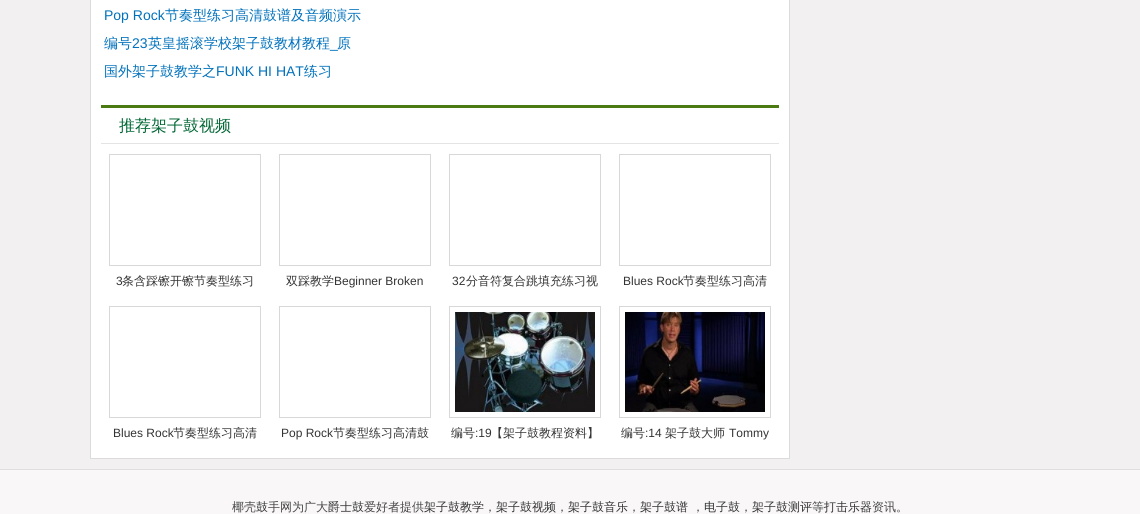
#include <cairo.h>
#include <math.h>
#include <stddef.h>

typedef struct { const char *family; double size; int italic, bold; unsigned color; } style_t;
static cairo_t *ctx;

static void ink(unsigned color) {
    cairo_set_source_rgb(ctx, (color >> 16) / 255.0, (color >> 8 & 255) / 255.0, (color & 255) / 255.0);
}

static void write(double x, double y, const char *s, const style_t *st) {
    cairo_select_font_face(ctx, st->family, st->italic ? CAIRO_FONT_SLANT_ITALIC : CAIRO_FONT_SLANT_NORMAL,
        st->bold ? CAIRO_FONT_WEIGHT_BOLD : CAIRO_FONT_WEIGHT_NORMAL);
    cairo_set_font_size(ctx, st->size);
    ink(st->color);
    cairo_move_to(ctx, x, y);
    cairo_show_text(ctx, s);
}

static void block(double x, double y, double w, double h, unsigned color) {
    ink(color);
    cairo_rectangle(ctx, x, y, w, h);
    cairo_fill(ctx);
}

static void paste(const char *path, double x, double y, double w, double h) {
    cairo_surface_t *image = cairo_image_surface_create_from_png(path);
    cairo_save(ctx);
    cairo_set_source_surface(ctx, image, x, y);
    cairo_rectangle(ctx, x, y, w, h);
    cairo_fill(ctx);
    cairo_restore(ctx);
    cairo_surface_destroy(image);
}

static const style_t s1 = {"Liberation Sans", 14, 0, 0, 0x0071bc};
static const style_t s2 = {"WenQuanYi Zen Hei Medium", 14, 0, 0, 0x0071bc};
static const style_t s3 = {"WenQuanYi Zen Hei Medium", 16, 0, 0, 0x006633};
static const style_t s4 = {"Liberation Sans", 12, 0, 0, 0x333333};
static const style_t s5 = {"WenQuanYi Zen Hei Medium", 12, 0, 0, 0x333333};
static const style_t s6 = {"WenQuanYi Zen Hei Medium", 12, 0, 0, 0x464646};

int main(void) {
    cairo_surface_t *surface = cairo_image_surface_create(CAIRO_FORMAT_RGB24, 1140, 514);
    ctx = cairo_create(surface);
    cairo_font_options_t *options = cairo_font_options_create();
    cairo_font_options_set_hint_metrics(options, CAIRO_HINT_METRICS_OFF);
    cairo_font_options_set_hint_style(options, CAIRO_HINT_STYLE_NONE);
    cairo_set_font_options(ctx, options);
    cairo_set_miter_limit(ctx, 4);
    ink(0xf2f0f1);
    cairo_paint(ctx);
    ink(0xffffff);
    cairo_rectangle(ctx, 90.5, -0.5, 699, 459);
    cairo_fill_preserve(ctx);
    ink(0xdbdbdb);
    cairo_set_line_width(ctx, 1);
    cairo_stroke(ctx);
    write(104, 20, "Pop Rock", &s1);
    write(165, 20, "节奏型练习高清鼓谱及音频演示", &s2);
    write(104, 48, "编号", &s2);
    write(132, 48, "23", &s1);
    write(148, 48, "英皇摇滚学校架子鼓教材教程", &s2);
    write(330, 48, "_", &s1);
    write(337, 48, "原", &s2);
    write(104, 76, "国外架子鼓教学之", &s2);
    write(216, 76, "FUNK HI HAT", &s1);
    write(304, 76, "练习", &s2);
    block(101, 105, 678, 3, 0x4b7a12);
    block(101, 143, 678, 1, 0xe4e4e4);
    write(119, 131, "推荐架子鼓视频", &s3);
    cairo_rectangle(ctx, 109.5, 154.5, 151, 111);
    ink(0xd8d8d8);
    cairo_stroke(ctx);
    write(116, 285, "3", &s4);
    write(122, 285, "条含踩镲开镲节奏型练习", &s5);
    cairo_rectangle(ctx, 279.5, 154.5, 151, 111);
    ink(0xd8d8d8);
    cairo_stroke(ctx);
    write(286, 285, "双踩教学", &s5);
    write(334, 285, "Beginner Broken", &s4);
    cairo_rectangle(ctx, 449.5, 154.5, 151, 111);
    ink(0xd8d8d8);
    cairo_stroke(ctx);
    write(452, 285, "32", &s4);
    write(466, 285, "分音符复合跳填充练习视", &s5);
    cairo_rectangle(ctx, 619.5, 154.5, 151, 111);
    ink(0xd8d8d8);
    cairo_stroke(ctx);
    write(623, 285, "Blues Rock", &s4);
    write(683, 285, "节奏型练习高清", &s5);
    cairo_rectangle(ctx, 109.5, 306.5, 151, 111);
    ink(0xd8d8d8);
    cairo_stroke(ctx);
    write(113, 437, "Blues Rock", &s4);
    write(173, 437, "节奏型练习高清", &s5);
    cairo_rectangle(ctx, 279.5, 306.5, 151, 111);
    ink(0xd8d8d8);
    cairo_stroke(ctx);
    write(281, 437, "Pop Rock", &s4);
    write(333, 437, "节奏型练习高清鼓", &s5);
    cairo_rectangle(ctx, 449.5, 306.5, 151, 111);
    ink(0xd8d8d8);
    cairo_stroke(ctx);
    paste("pic1.png", 455, 312, 140, 100);
    write(451, 437, "编号", &s5);
    write(475, 437, ":19", &s4);
    write(491, 437, "【架子鼓教程资料】", &s5);
    cairo_rectangle(ctx, 619.5, 306.5, 151, 111);
    ink(0xd8d8d8);
    cairo_stroke(ctx);
    paste("pic2.png", 625, 312, 140, 100);
    write(621, 437, "编号", &s5);
    write(645, 437, ":14", &s4);
    write(665, 437, "架子鼓大师", &s5);
    write(729, 437, "Tommy", &s4);
    block(0, 470, 1140, 44, 0xf9f7f8);
    block(0, 469, 1140, 1, 0xe0dedf);
    write(232, 511, "椰壳", &s6);
    write(256, 511, "鼓", &s5);
    write(268, 511, "手网为广大", &s6);
    write(328, 511, "爵士鼓", &s5);
    write(364, 511, "爱好者提供", &s6);
    write(424, 511, "架子鼓教学", &s5);
    write(484, 511, "，", &s6);
    write(496, 511, "架子鼓视频", &s5);
    write(556, 511, "，", &s6);
    write(568, 511, "架子鼓音乐", &s5);
    write(628, 511, "，", &s6);
    write(640, 511, "架子鼓谱", &s5);
    write(692, 511, "，", &s6);
    write(704, 511, "电子鼓", &s5);
    write(740, 511, "，", &s6);
    write(752, 511, "架子鼓测评", &s5);
    write(812, 511, "等", &s6);
    write(824, 511, "打击乐器", &s5);
    write(872, 511, "资讯。", &s6);
    cairo_surface_write_to_png(surface, "screenshot.png");
    cairo_font_options_destroy(options);
    cairo_destroy(ctx);
    cairo_surface_destroy(surface);
    return 0;
}
